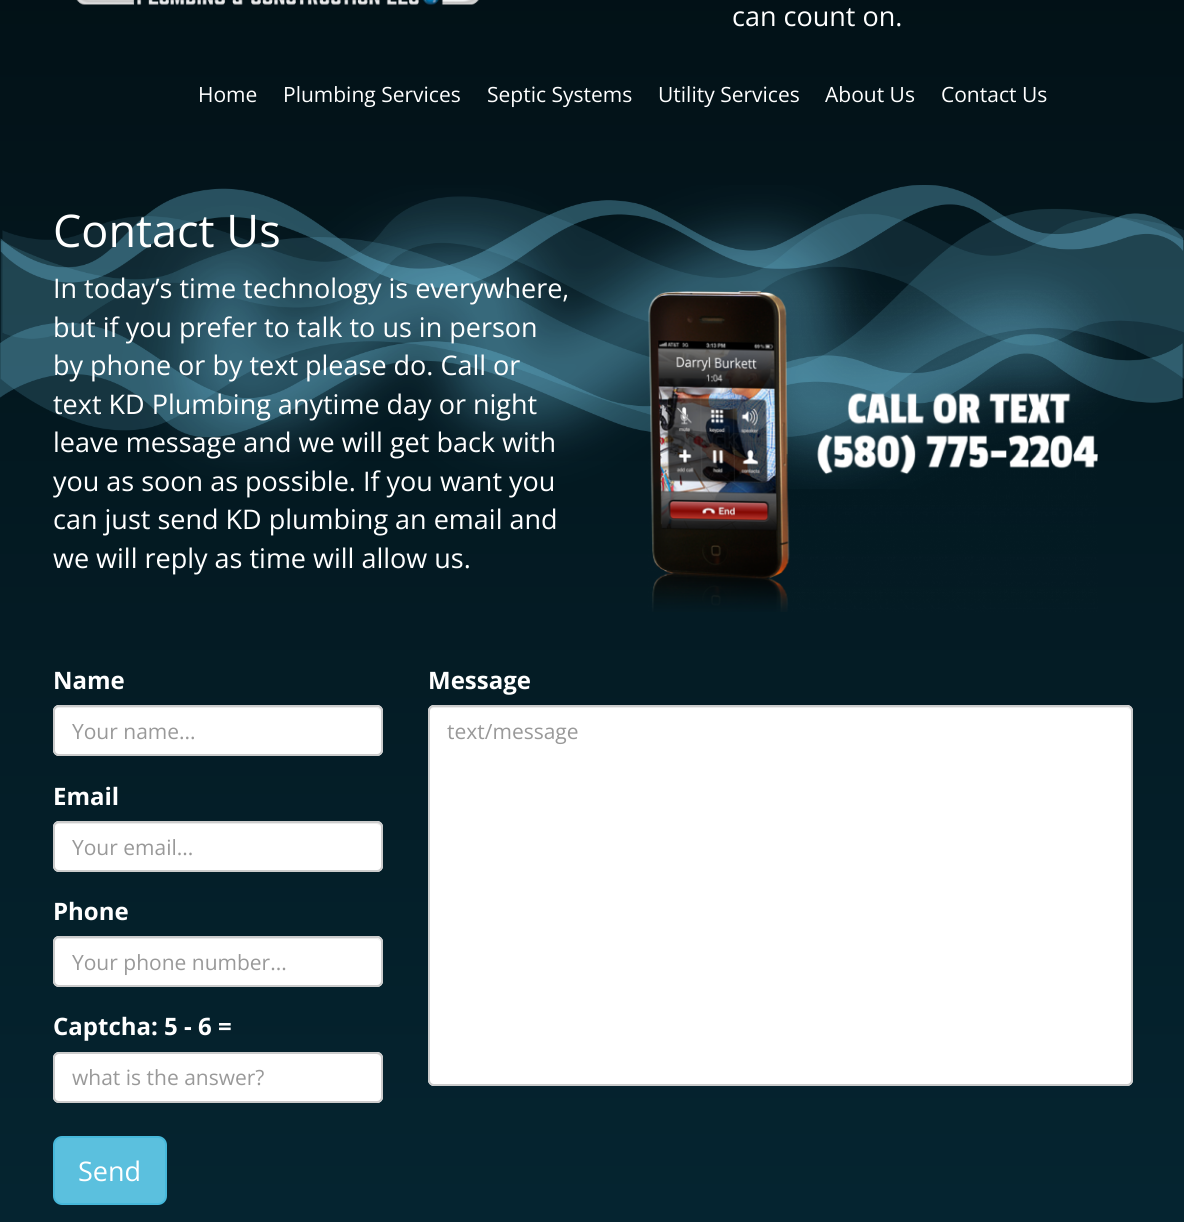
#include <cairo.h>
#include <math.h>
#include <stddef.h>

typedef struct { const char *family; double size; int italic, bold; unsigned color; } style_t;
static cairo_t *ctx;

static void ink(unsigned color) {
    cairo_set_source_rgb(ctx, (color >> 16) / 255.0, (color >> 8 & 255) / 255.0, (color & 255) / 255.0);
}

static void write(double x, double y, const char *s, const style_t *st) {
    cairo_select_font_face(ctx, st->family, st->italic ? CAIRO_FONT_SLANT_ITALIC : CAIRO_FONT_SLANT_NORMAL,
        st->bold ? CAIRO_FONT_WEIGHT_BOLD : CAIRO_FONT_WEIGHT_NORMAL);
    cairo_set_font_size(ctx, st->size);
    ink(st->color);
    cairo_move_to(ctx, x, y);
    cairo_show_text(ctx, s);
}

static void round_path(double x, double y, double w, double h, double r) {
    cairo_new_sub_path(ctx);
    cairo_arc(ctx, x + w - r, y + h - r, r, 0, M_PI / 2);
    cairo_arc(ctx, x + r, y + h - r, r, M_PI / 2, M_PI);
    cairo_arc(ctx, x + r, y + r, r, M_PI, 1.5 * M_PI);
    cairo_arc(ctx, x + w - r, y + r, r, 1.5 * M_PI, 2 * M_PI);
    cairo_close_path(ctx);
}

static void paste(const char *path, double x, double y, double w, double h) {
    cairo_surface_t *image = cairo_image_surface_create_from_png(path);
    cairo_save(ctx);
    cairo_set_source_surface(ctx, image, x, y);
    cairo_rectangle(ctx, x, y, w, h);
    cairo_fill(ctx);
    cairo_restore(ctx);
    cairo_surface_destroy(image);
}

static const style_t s1 = {"Open Sans", 27, 0, 0, 0xffffff};
static const style_t s2 = {"Open Sans", 21, 0, 0, 0xffffff};
static const style_t s3 = {"Open Sans", 45, 0, 0, 0xffffff};
static const style_t s4 = {"Open Sans", 24, 0, 1, 0xffffff};
static const style_t s5 = {"Open Sans", 21, 0, 0, 0x999999};

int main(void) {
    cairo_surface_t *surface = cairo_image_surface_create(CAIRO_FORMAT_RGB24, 1184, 1222);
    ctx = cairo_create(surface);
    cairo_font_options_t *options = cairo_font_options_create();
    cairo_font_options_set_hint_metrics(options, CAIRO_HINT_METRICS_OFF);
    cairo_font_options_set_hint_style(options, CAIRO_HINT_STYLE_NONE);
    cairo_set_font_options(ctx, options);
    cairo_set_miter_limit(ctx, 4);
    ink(0xffffff);
    cairo_paint(ctx);
    paste("pic1.png", 0, 0, 1184, 1222);
    paste("pic2.png", 76, 0, 403, 5);
    write(732, 26, "can count on.", &s1);
    write(198, 102, "Home", &s2);
    write(283, 102, "Plumbing Services", &s2);
    write(487, 102, "Septic Systems", &s2);
    write(658, 102, "Utility Services", &s2);
    write(825, 102, "About Us", &s2);
    write(941, 102, "Contact Us", &s2);
    paste("pic3.png", 0, 185, 1184, 304);
    write(53, 247, "Contact Us", &s3);
    write(53, 298, "In today’s time technology is everywhere,", &s1);
    write(53, 337, "but if you prefer to talk to us in person", &s1);
    write(53, 375, "by phone or by text please do. Call or", &s1);
    write(53, 414, "text KD Plumbing anytime day or night", &s1);
    write(53, 452, "leave message and we will get back with", &s1);
    write(53, 491, "you as soon as possible. If you want you", &s1);
    write(53, 529, "can just send KD plumbing an email and", &s1);
    write(53, 568, "we will reply as time will allow us.", &s1);
    paste("pic4.png", 648, 290, 450, 322);
    write(53, 689, "Name", &s4);
    round_path(53, 705, 330, 51, 6);
    cairo_fill(ctx);
    ink(0xececec);
    cairo_new_path(ctx);
    cairo_move_to(ctx, 58, 708);
    cairo_line_to(ctx, 376, 708);
    cairo_curve_to(ctx, 379, 708, 381, 710, 381, 712);
    cairo_curve_to(ctx, 381, 709, 379, 707, 376, 707);
    cairo_line_to(ctx, 59, 707);
    cairo_curve_to(ctx, 56, 707, 54, 709, 54, 712);
    cairo_curve_to(ctx, 54, 710, 56, 708, 58, 708);
    cairo_close_path(ctx);
    cairo_fill(ctx);
    round_path(54, 706, 328, 49, 5);
    ink(0xcccccc);
    cairo_stroke(ctx);
    write(72, 739, "Your name...", &s5);
    write(53, 805, "Email", &s4);
    round_path(53, 821, 330, 51, 6);
    cairo_fill(ctx);
    ink(0xececec);
    cairo_new_path(ctx);
    cairo_move_to(ctx, 58, 824);
    cairo_line_to(ctx, 376, 824);
    cairo_curve_to(ctx, 379, 824, 381, 826, 381, 828);
    cairo_curve_to(ctx, 381, 825, 379, 822, 376, 822);
    cairo_line_to(ctx, 59, 822);
    cairo_curve_to(ctx, 56, 822, 54, 825, 54, 828);
    cairo_curve_to(ctx, 54, 826, 56, 824, 58, 824);
    cairo_close_path(ctx);
    cairo_fill(ctx);
    round_path(54, 822, 328, 49, 5);
    ink(0xcccccc);
    cairo_stroke(ctx);
    write(72, 855, "Your email...", &s5);
    write(53, 920, "Phone", &s4);
    round_path(53, 936, 330, 51, 6);
    cairo_fill(ctx);
    ink(0xececec);
    cairo_new_path(ctx);
    cairo_move_to(ctx, 58, 939);
    cairo_line_to(ctx, 376, 939);
    cairo_curve_to(ctx, 379, 939, 381, 941, 381, 944);
    cairo_curve_to(ctx, 381, 941, 379, 938, 376, 938);
    cairo_line_to(ctx, 59, 938);
    cairo_curve_to(ctx, 56, 938, 54, 941, 54, 944);
    cairo_curve_to(ctx, 54, 941, 56, 939, 58, 939);
    cairo_close_path(ctx);
    cairo_fill(ctx);
    round_path(54, 937, 328, 49, 5);
    ink(0xcccccc);
    cairo_stroke(ctx);
    write(72, 970, "Your phone number...", &s5);
    write(53, 1035, "Captcha: 5 - 6 =", &s4);
    round_path(53, 1052, 330, 51, 6);
    cairo_fill(ctx);
    ink(0xececec);
    cairo_new_path(ctx);
    cairo_move_to(ctx, 58, 1054);
    cairo_line_to(ctx, 376, 1054);
    cairo_curve_to(ctx, 379, 1054, 381, 1057, 381, 1059);
    cairo_curve_to(ctx, 381, 1056, 379, 1053, 376, 1053);
    cairo_line_to(ctx, 59, 1053);
    cairo_curve_to(ctx, 56, 1053, 54, 1056, 54, 1059);
    cairo_curve_to(ctx, 54, 1057, 56, 1054, 58, 1054);
    cairo_close_path(ctx);
    cairo_fill(ctx);
    round_path(54, 1053, 328, 49, 5);
    ink(0xcccccc);
    cairo_stroke(ctx);
    write(72, 1085, "what is the answer?", &s5);
    write(428, 689, "Message", &s4);
    round_path(428, 705, 705, 381, 6);
    cairo_fill(ctx);
    ink(0xececec);
    cairo_new_path(ctx);
    cairo_move_to(ctx, 434, 708);
    cairo_line_to(ctx, 1126, 708);
    cairo_curve_to(ctx, 1129, 708, 1131, 710, 1131, 712);
    cairo_curve_to(ctx, 1131, 709, 1129, 707, 1126, 707);
    cairo_line_to(ctx, 434, 707);
    cairo_curve_to(ctx, 431, 707, 429, 709, 429, 712);
    cairo_curve_to(ctx, 429, 710, 431, 708, 434, 708);
    cairo_close_path(ctx);
    cairo_fill(ctx);
    round_path(429, 706, 703, 379, 5);
    ink(0xcccccc);
    cairo_stroke(ctx);
    write(447, 739, "text/message", &s5);
    ink(0x5bc0de);
    round_path(54, 1137, 112, 67, 8);
    cairo_fill_preserve(ctx);
    ink(0x46b8da);
    cairo_stroke(ctx);
    write(78, 1181, "Send", &s1);
    cairo_surface_write_to_png(surface, "screenshot.png");
    cairo_font_options_destroy(options);
    cairo_destroy(ctx);
    cairo_surface_destroy(surface);
    return 0;
}
